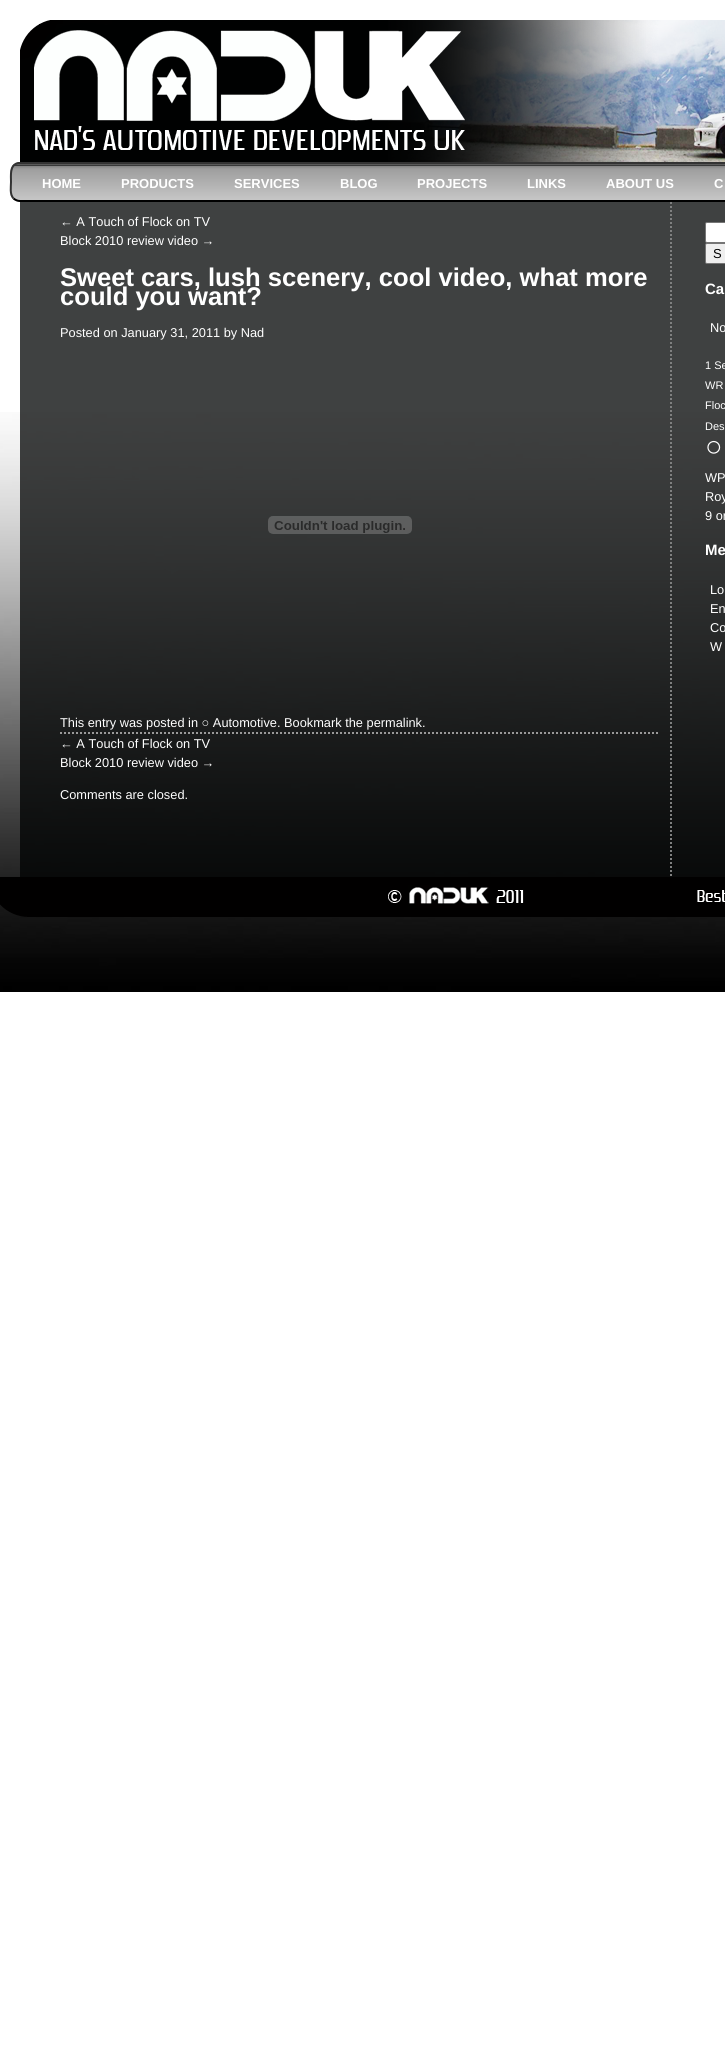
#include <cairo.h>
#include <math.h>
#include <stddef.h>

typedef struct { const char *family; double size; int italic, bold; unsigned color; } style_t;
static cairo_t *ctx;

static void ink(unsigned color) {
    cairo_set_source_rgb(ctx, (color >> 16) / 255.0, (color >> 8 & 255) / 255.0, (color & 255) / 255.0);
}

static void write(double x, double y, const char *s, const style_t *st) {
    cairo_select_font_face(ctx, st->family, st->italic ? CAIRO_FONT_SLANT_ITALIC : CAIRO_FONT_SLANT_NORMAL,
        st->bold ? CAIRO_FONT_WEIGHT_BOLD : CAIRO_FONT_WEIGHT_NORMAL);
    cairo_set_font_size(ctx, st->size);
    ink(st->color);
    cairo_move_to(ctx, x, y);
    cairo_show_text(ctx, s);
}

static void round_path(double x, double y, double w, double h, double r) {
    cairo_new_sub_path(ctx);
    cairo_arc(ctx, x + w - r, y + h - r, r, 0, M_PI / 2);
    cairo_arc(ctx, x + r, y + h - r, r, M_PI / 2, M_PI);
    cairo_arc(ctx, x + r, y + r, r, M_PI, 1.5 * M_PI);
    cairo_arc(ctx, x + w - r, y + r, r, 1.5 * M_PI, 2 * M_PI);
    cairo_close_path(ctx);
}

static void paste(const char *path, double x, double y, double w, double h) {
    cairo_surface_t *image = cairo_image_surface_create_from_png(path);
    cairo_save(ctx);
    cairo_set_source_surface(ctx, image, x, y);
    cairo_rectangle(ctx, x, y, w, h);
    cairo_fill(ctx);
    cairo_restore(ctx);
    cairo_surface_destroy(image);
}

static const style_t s1 = {"Liberation Sans", 13, 0, 1, 0xffffff};
static const style_t s2 = {"Liberation Sans", 12.8, 0, 0, 0xffffff};
static const style_t s3 = {"Liberation Sans", 25.6, 0, 1, 0xffffff};
static const style_t s4 = {"Liberation Sans", 13, 0, 0, 0x000000};
static const style_t s5 = {"Liberation Sans", 15, 0, 1, 0xffffff};
static const style_t s6 = {"Liberation Sans", 11, 0, 0, 0xffffff};
static const style_t s7 = {"Liberation Sans", 29, 0, 0, 0xffffff};

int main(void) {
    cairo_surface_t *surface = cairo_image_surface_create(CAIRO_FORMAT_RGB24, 725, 2066);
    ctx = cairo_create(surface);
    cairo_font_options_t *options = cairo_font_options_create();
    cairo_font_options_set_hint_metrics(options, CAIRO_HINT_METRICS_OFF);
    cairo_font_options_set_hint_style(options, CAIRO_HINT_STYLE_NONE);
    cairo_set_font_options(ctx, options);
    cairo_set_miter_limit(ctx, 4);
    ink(0xffffff);
    cairo_paint(ctx);
    paste("pic1.png", 0, 412, 725, 580);
    cairo_set_source_rgba(ctx, 0, 0.008, 0.008, 0.5);
    cairo_rectangle(ctx, 20, 202, 705, 675);
    cairo_fill(ctx);
    paste("pic2.png", 20, 20, 705, 142);
    paste("pic3.png", 10, 164, 715, 38);
    cairo_new_path(ctx);
    cairo_move_to(ctx, 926.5, 165.5);
    cairo_curve_to(ctx, 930.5, 170, 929, 177, 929, 182);
    cairo_curve_to(ctx, 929, 188.5, 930.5, 199, 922, 201);
    cairo_line_to(ctx, 20, 201);
    cairo_curve_to(ctx, 17.5, 201, 15.5, 200, 13.5, 198.5);
    ink(0x000000);
    cairo_stroke(ctx);
    cairo_new_path(ctx);
    cairo_move_to(ctx, 13.5, 198.5);
    cairo_curve_to(ctx, 9.5, 194, 11, 187, 11, 182);
    cairo_curve_to(ctx, 11, 175.5, 9.5, 165, 18, 163);
    cairo_line_to(ctx, 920, 163);
    cairo_curve_to(ctx, 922.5, 163, 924.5, 164, 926.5, 165.5);
    ink(0x333333);
    cairo_stroke(ctx);
    write(42, 188, "HOME", &s1);
    write(121, 188, "PRODUCTS", &s1);
    write(234, 188, "SERVICES", &s1);
    write(340, 188, "BLOG", &s1);
    write(417, 188, "PROJECTS", &s1);
    write(527, 188, "LINKS", &s1);
    write(606, 188, "ABOUT US", &s1);
    write(714, 188, "C", &s1);
    cairo_new_path(ctx);
    cairo_move_to(ctx, 671, 202);
    cairo_line_to(ctx, 671, 877);
    cairo_set_dash(ctx, (double[]){2, 2}, 2, 0);
    cairo_stroke(ctx);
    cairo_set_source_rgba(ctx, 0, 0.008, 0.008, 0.5);
    cairo_rectangle(ctx, 20, 202, 705, 675);
    cairo_fill(ctx);
    write(60, 226, "← A Touch of Flock on TV", &s2);
    write(60, 245, "Block 2010 review video →", &s2);
    cairo_new_path(ctx);
    cairo_move_to(ctx, 60, 733);
    cairo_line_to(ctx, 660, 733);
    ink(0x999999);
    cairo_stroke(ctx);
    write(60, 286, "Sweet cars, lush scenery, cool video, what more", &s3);
    write(60, 305, "could you want?", &s3);
    write(60, 337, "Posted on January 31, 2011 by Nad", &s2);
    paste("pic4.png", 268, 516, 144, 18);
    write(60, 727, "This entry was posted in ○ Automotive. Bookmark the permalink.", &s2);
    write(60, 748, "← A Touch of Flock on TV", &s2);
    write(60, 767, "Block 2010 review video →", &s2);
    write(60, 799, "Comments are closed.", &s2);
    round_path(705.5, 222.5, 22, 20, 1.5);
    cairo_fill_preserve(ctx);
    ink(0x767676);
    cairo_set_line_width(ctx, 1);
    cairo_set_dash(ctx, NULL, 0, 0);
    cairo_stroke(ctx);
    ink(0xefefef);
    round_path(705.5, 243.5, 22, 20, 1.5);
    cairo_fill_preserve(ctx);
    ink(0x767676);
    cairo_stroke(ctx);
    write(713, 258, "S", &s4);
    write(705, 294, "Ca", &s5);
    write(710, 332, "No", &s2);
    write(705, 369, "1 Se", &s6);
    write(705, 389, "WR", &s6);
    write(705, 409, "Floc", &s6);
    write(705, 430, "Des", &s6);
    write(705, 456, "○", &s7);
    write(705, 482, "WP", &s2);
    write(705, 501, "Roy", &s2);
    write(705, 520, "9 or", &s2);
    write(705, 555, "Me", &s5);
    write(710, 594, "Lo", &s2);
    write(710, 613, "En", &s2);
    write(710, 632, "Co", &s2);
    write(710, 651, "W", &s2);
    paste("pic5.png", 0, 877, 725, 40);
    cairo_surface_write_to_png(surface, "screenshot.png");
    cairo_font_options_destroy(options);
    cairo_destroy(ctx);
    cairo_surface_destroy(surface);
    return 0;
}
